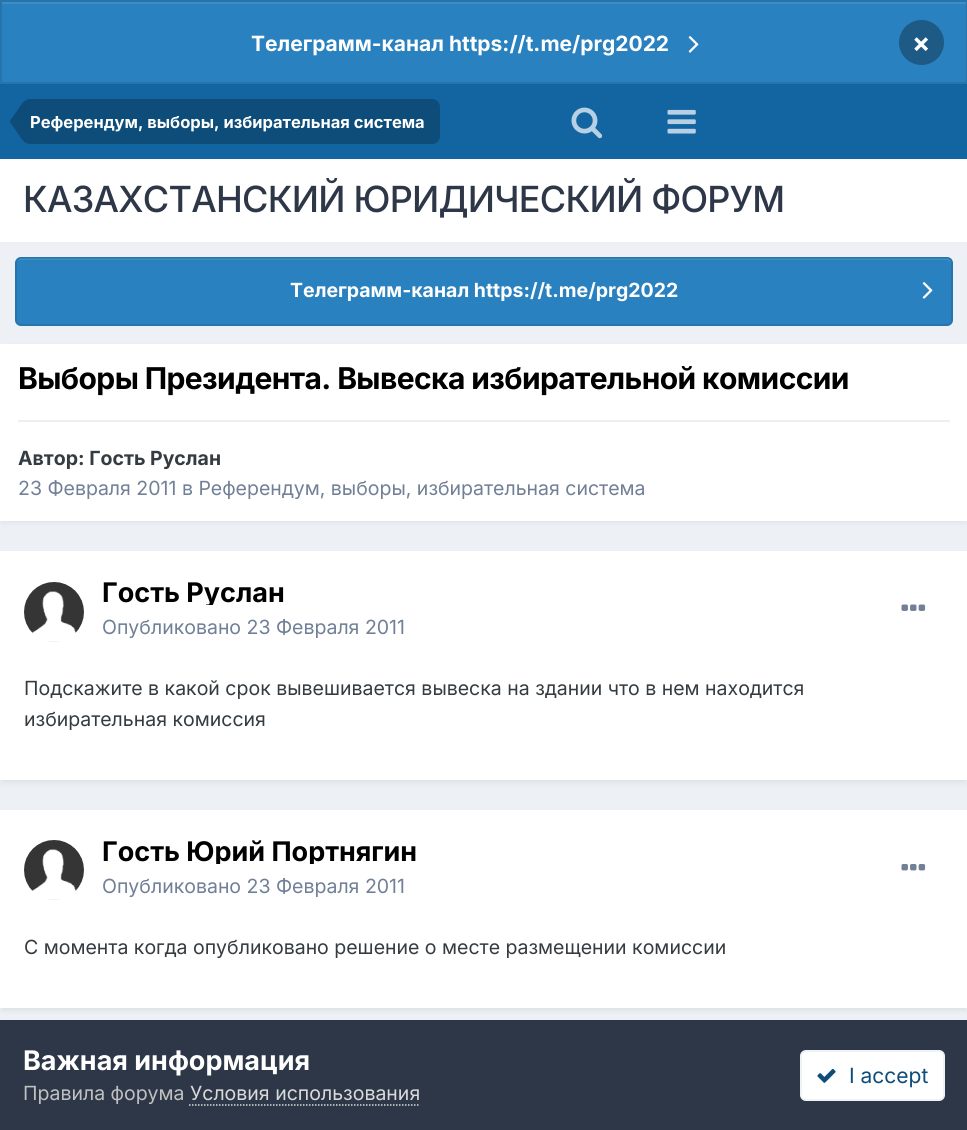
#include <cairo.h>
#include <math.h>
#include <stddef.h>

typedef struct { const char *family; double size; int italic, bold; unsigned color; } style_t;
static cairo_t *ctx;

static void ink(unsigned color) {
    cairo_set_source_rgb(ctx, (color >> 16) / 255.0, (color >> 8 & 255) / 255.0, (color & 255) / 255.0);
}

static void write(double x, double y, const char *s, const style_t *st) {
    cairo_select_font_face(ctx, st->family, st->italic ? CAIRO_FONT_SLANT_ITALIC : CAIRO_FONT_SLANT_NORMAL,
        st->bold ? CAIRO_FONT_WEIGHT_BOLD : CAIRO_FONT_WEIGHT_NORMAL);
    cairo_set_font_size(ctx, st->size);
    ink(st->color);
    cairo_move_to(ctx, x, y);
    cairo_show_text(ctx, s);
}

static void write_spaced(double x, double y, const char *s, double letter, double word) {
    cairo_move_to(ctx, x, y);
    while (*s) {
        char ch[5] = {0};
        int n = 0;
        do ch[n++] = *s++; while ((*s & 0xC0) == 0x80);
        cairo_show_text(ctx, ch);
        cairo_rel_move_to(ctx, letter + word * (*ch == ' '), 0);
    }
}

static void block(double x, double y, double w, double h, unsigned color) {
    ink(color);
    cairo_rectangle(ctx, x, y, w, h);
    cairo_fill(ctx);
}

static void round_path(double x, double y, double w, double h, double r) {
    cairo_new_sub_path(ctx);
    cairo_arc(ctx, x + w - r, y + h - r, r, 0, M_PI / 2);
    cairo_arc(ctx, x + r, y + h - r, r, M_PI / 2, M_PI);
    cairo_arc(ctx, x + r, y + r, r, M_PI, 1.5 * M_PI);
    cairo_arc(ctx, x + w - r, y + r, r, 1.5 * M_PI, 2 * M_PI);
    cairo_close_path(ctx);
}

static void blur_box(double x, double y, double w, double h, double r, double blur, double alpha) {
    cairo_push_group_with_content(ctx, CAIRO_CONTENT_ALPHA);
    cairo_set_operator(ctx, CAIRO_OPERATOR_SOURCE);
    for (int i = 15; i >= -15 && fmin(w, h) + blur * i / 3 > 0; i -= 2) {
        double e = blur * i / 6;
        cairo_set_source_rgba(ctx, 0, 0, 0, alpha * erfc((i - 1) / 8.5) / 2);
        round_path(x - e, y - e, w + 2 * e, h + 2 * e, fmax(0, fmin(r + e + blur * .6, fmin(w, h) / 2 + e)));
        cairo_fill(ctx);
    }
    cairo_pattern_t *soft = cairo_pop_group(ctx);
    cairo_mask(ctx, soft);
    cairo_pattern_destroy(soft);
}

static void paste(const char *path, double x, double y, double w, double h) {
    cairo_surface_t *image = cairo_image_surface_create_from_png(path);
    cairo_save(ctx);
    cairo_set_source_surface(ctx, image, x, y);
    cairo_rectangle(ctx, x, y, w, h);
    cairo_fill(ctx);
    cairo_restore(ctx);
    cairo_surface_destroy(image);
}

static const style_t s1 = {"Inter", 21, 0, 1, 0xffffff};
static const style_t s2 = {"Inter", 27, 0, 1, 0xffffff};
static const style_t s3 = {"Inter", 16.5, 0, 1, 0xffffff};
static const style_t s4 = {"Inter", 19.5, 0, 1, 0xffffff};
static const style_t s5 = {"Inter", 19.5, 0, 1, 0x353c41};
static const style_t s6 = {"Inter", 19.5, 0, 0, 0x718096};
static const style_t s7 = {"Inter", 27, 0, 1, 0x000000};
static const style_t s8 = {"Inter", 19.5, 0, 0, 0x353c41};
static const style_t s9 = {"Inter", 19.5, 0, 0, 0xc0c0c0};
static const style_t s10 = {"Inter", 19.5, 0, 0, 0xdadada};
static const style_t s11 = {"Inter", 21, 0, 0, 0x0e4c79};

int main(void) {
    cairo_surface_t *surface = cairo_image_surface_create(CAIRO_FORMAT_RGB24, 967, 1130);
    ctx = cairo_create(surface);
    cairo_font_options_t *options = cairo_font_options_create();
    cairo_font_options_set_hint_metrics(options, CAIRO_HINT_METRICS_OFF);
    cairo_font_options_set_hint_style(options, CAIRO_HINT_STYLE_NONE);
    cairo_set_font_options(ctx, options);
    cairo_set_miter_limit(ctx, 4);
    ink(0xedf0f4);
    cairo_paint(ctx);
    block(2, 4, 964, 78, 0x2981bf);
    block(2, 2, 964, 2, 0x3e8ec5);
    cairo_rectangle(ctx, 1, 1, 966, 82);
    ink(0x2574ac);
    cairo_stroke(ctx);
    write(251, 51, "Телеграмм-канал https://t.me/prg2022", &s1);
    paste("pic1.png", 688, 36, 11, 17);
    ink(0x1d5a86);
    cairo_arc(ctx, 921.5, 42.5, 22.5, 0, 2 * M_PI);
    cairo_fill(ctx);
    write(912, 52, "×", &s2);
    block(0, 84, 967, 75, 0x1265a1);
    ink(0x0e4c79);
    cairo_new_path(ctx);
    cairo_move_to(ctx, 30, 99);
    cairo_line_to(ctx, 432, 99);
    cairo_curve_to(ctx, 436.5, 99, 440, 102.5, 440, 107);
    cairo_line_to(ctx, 440, 136);
    cairo_curve_to(ctx, 440, 140.5, 436.5, 144, 432, 144);
    cairo_line_to(ctx, 30, 144);
    cairo_close_path(ctx);
    cairo_fill(ctx);
    cairo_new_path(ctx);
    cairo_move_to(ctx, 10.5, 123);
    cairo_line_to(ctx, 10, 121.5);
    cairo_line_to(ctx, 30, 121.5);
    cairo_line_to(ctx, 30, 144);
    cairo_curve_to(ctx, 27, 144, 23.5, 142, 21, 138);
    cairo_close_path(ctx);
    cairo_fill(ctx);
    cairo_set_source_rgba(ctx, 0, 0, 0, 0.25);
    cairo_new_path(ctx);
    cairo_move_to(ctx, 30, 99);
    cairo_line_to(ctx, 30, 121.5);
    cairo_line_to(ctx, 10, 121.5);
    cairo_line_to(ctx, 10.5, 120);
    cairo_line_to(ctx, 21, 105);
    cairo_curve_to(ctx, 23.5, 101, 27, 99, 30, 99);
    cairo_close_path(ctx);
    cairo_fill(ctx);
    write(30, 128, "Референдум, выборы, избирательная система", &s3);
    paste("pic2.png", 571, 107, 32, 32);
    paste("pic3.png", 667, 109, 29, 25);
    block(0, 159, 967, 83, 0xffffff);
    cairo_select_font_face(ctx, "Inter Medium", CAIRO_FONT_SLANT_NORMAL, CAIRO_FONT_WEIGHT_NORMAL);
    cairo_set_font_size(ctx, 36);
    ink(0x2d3748);
    write_spaced(23, 212, "КАЗАХСТАНСКИЙ ЮРИДИЧЕСКИЙ ФОРУМ", -0.75, 0);
    ink(0x2981bf);
    round_path(15, 257, 938, 69, 6);
    cairo_fill(ctx);
    ink(0x3e8ec5);
    cairo_new_path(ctx);
    cairo_move_to(ctx, 21, 260);
    cairo_line_to(ctx, 946, 260);
    cairo_curve_to(ctx, 949, 260, 951, 262, 951, 264);
    cairo_line_to(ctx, 951, 263);
    cairo_curve_to(ctx, 951, 260, 949, 258, 946, 258);
    cairo_line_to(ctx, 22, 258);
    cairo_curve_to(ctx, 20, 258, 18, 260, 17, 262);
    cairo_curve_to(ctx, 18, 261, 20, 260, 21, 260);
    cairo_close_path(ctx);
    cairo_fill(ctx);
    round_path(16, 258, 936, 67, 5);
    cairo_set_source_rgba(ctx, 0, 0, 0, 0.1);
    cairo_stroke(ctx);
    write(290, 297, "Телеграмм-канал https://t.me/prg2022", &s4);
    paste("pic1.png", 922, 282, 11, 17);
    ink(0x2d3748);
    blur_box(2, 348, 964, 174, 0, 3, 0.1);
    block(0, 344, 967, 177, 0xffffff);
    cairo_set_font_size(ctx, 30);
    ink(0x000000);
    write_spaced(18, 389, "Выборы Президента. Вывеска избирательной комиссии", -0.6, 0);
    block(18, 420, 932, 2, 0xefeff0);
    write(18, 465, "Автор: Гость Руслан", &s5);
    write(18, 495, "23 Февраля 2011 в Референдум, выборы, избирательная система", &s6);
    ink(0x2d3748);
    blur_box(2, 555, 964, 227, 0, 3, 0.1);
    block(0, 551, 967, 229, 0xffffff);
    paste("pic4.png", 24, 582, 60, 60);
    cairo_save(ctx);
    cairo_rectangle(ctx, 102, 581, 183, 24);
    cairo_clip(ctx);
    write(102, 602, "Гость Руслан", &s7);
    cairo_restore(ctx);
    write(102, 634, "Опубликовано 23 Февраля 2011", &s6);
    paste("pic5.png", 901, 604, 25, 7);
    write(24, 695, "Подскажите в какой срок вывешивается вывеска на здании что в нем находится", &s8);
    write(24, 726, "избирательная комиссия", &s8);
    ink(0x2d3748);
    blur_box(2, 815, 964, 195, 0, 3, 0.1);
    block(0, 810, 967, 198, 0xffffff);
    paste("pic6.png", 24, 840, 60, 60);
    cairo_save(ctx);
    cairo_rectangle(ctx, 102, 840, 315, 24);
    cairo_clip(ctx);
    write(102, 861, "Гость Юрий Портнягин", &s7);
    cairo_restore(ctx);
    write(102, 893, "Опубликовано 23 Февраля 2011", &s6);
    paste("pic7.png", 901, 864, 25, 7);
    write(24, 954, "С момента когда опубликовано решение о месте размещении комиссии", &s8);
    block(0, 1020, 967, 110, 0x2d3748);
    write(23, 1070, "Важная информация", &s2);
    write(23, 1100, "Правила форума", &s9);
    write(190, 1100, "Условия использования", &s10);
    cairo_new_path(ctx);
    cairo_move_to(ctx, 189, 1105);
    cairo_line_to(ctx, 420, 1105);
    cairo_set_line_width(ctx, 1.5);
    cairo_set_dash(ctx, (double[]){1.5, 1.5}, 2, 0);
    cairo_stroke(ctx);
    ink(0xffffff);
    round_path(800, 1050, 145, 51, 6);
    cairo_fill(ctx);
    round_path(801, 1051, 143, 49, 5);
    cairo_set_source_rgba(ctx, 0.055, 0.298, 0.475, 0.07);
    cairo_set_line_width(ctx, 2);
    cairo_set_dash(ctx, NULL, 0, 0);
    cairo_stroke(ctx);
    paste("pic8.png", 817, 1068, 19, 15);
    write(849, 1083, "I accept", &s11);
    cairo_surface_write_to_png(surface, "screenshot.png");
    cairo_font_options_destroy(options);
    cairo_destroy(ctx);
    cairo_surface_destroy(surface);
    return 0;
}
